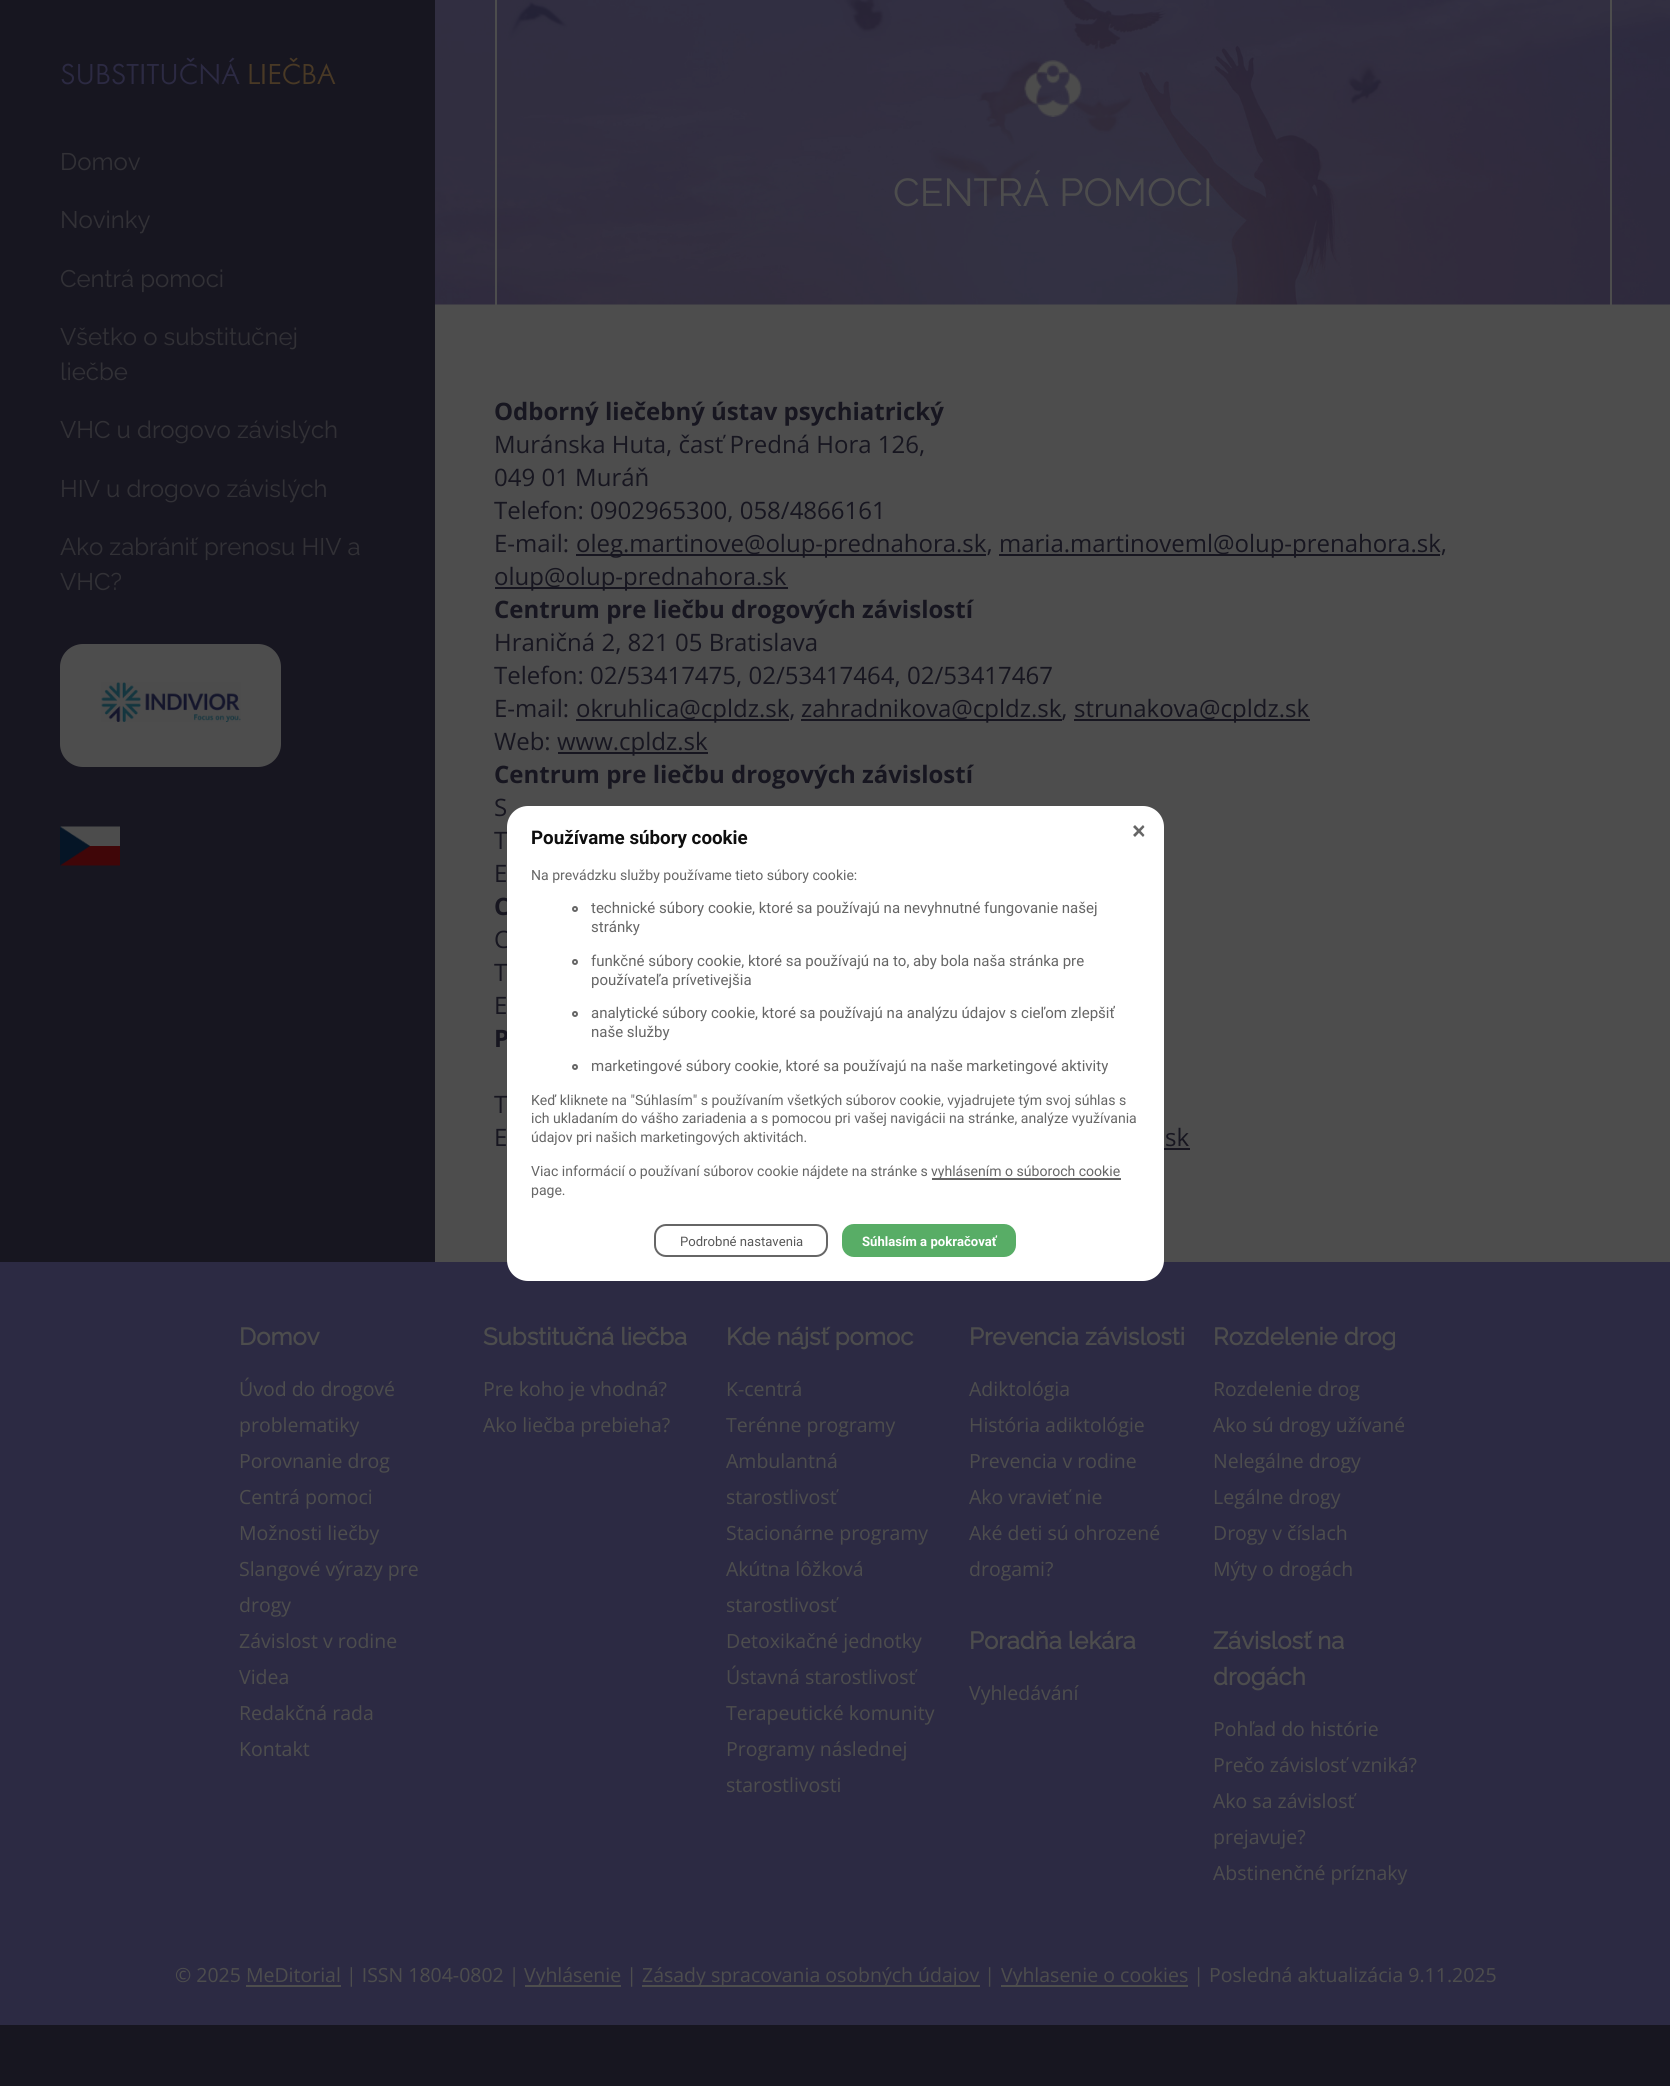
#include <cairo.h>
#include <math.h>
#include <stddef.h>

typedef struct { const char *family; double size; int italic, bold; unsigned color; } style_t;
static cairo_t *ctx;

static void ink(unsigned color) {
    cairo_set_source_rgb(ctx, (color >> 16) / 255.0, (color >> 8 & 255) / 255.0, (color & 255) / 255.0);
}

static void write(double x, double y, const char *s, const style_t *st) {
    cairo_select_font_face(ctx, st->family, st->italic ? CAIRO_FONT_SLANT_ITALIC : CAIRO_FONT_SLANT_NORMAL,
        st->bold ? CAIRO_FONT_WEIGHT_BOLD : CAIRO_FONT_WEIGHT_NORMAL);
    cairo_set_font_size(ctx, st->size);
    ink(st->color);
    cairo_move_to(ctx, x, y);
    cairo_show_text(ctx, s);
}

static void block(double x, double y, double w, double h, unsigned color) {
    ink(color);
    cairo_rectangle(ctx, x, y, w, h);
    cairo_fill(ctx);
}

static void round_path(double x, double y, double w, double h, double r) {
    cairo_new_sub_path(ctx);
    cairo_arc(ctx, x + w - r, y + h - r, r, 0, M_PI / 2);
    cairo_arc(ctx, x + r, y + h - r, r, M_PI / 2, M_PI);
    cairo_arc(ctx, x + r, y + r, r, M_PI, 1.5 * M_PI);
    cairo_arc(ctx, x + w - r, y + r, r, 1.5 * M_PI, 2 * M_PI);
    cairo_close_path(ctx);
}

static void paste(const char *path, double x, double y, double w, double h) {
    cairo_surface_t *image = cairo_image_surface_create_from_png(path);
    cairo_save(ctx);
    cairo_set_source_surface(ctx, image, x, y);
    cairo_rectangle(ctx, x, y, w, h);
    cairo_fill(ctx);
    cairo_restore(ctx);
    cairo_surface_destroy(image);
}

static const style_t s1 = {"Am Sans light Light", 30, 0, 0, 0x2c2a43};
static const style_t s2 = {"Am Sans light Light", 30, 0, 0, 0x493925};
static const style_t s3 = {"Raleway Thin", 24, 0, 0, 0x323136};
static const style_t s4 = {"Raleway Thin", 39, 0, 0, 0x4d4d4d};
static const style_t s5 = {"Open Sans", 24, 0, 1, 0x171620};
static const style_t s6 = {"Open Sans", 24, 0, 0, 0x171620};
static const style_t s7 = {"Roboto", 18.75, 0, 1, 0x0e0e0e};
static const style_t s8 = {"Roboto", 14.05, 0, 0, 0x666666};
static const style_t s9 = {"Roboto", 15, 0, 0, 0x666666};
static const style_t s10 = {"Roboto", 13.1, 0, 0, 0x585858};
static const style_t s11 = {"Roboto", 13.1, 0, 1, 0xffffff};
static const style_t s12 = {"Raleway", 24, 0, 1, 0x4d4d4d};
static const style_t s13 = {"Open Sans", 19.5, 0, 0, 0x4d4d4d};

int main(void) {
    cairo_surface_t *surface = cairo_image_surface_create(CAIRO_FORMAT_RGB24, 1670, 2086);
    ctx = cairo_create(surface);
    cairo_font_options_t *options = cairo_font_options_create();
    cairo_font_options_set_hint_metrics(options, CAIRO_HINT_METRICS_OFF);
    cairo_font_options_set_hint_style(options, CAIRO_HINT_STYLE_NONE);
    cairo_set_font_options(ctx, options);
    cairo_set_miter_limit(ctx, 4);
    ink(0x171620);
    cairo_paint(ctx);
    write(60, 84, "SUBSTITUČNÁ", &s1);
    write(247, 84, "LIEČBA", &s2);
    write(60, 170, "Domov", &s3);
    write(60, 228, "Novinky", &s3);
    write(60, 287, "Centrá pomoci", &s3);
    write(60, 345, "Všetko o substitučnej", &s3);
    write(60, 380, "liečbe", &s3);
    write(60, 438, "VHC u drogovo závislých", &s3);
    write(60, 497, "HIV u drogovo závislých", &s3);
    write(60, 555, "Ako zabrániť prenosu HIV a", &s3);
    write(60, 590, "VHC?", &s3);
    ink(0x4d4d4d);
    round_path(60, 644, 221, 123, 23);
    cairo_fill(ctx);
    paste("pic1.png", 101, 682, 140, 40);
    paste("pic2.png", 60, 826, 60, 40);
    block(435, 304, 1235, 958, 0x4d4d4d);
    paste("pic3.png", 435, 0, 1235, 305);
    block(495, 0, 2, 305, 0x4d4d4d);
    paste("pic4.png", 1024, 60, 58, 57);
    block(1610, 0, 2, 305, 0x4d4d4d);
    write(893, 206, "CENTRÁ POMOCI", &s4);
    write(494, 420, "Odborný liečebný ústav psychiatrický", &s5);
    write(494, 453, "Muránska Huta, časť Predná Hora 126,", &s6);
    write(494, 486, "049 01 Muráň", &s6);
    write(494, 519, "Telefon: 0902965300, 058/4866161", &s6);
    write(494, 552, "E-mail:", &s6);
    block(576, 554, 410, 2, 0x171620);
    write(576, 552, "oleg.martinove@olup-prednahora.sk,", &s6);
    block(999, 554, 441, 2, 0x171620);
    write(999, 552, "maria.martinoveml@olup-prenahora.sk,", &s6);
    block(495, 587, 293, 2, 0x171620);
    write(494, 585, "olup@olup-prednahora.sk", &s6);
    write(494, 618, "Centrum pre liečbu drogových závislostí", &s5);
    write(494, 651, "Hraničná 2, 821 05 Bratislava", &s6);
    write(494, 684, "Telefon: 02/53417475, 02/53417464, 02/53417467", &s6);
    write(494, 717, "E-mail:", &s6);
    block(576, 719, 213, 2, 0x171620);
    write(576, 717, "okruhlica@cpldz.sk,", &s6);
    block(801, 719, 261, 2, 0x171620);
    write(801, 717, "zahradnikova@cpldz.sk,", &s6);
    block(1074, 719, 236, 2, 0x171620);
    write(1074, 717, "strunakova@cpldz.sk", &s6);
    write(494, 750, "Web:", &s6);
    block(558, 752, 150, 2, 0x171620);
    write(557, 750, "www.cpldz.sk", &s6);
    write(494, 783, "Centrum pre liečbu drogových závislostí", &s5);
    write(494, 816, "S", &s6);
    write(494, 849, "T", &s6);
    write(494, 882, "E", &s6);
    write(494, 915, "C", &s5);
    write(494, 948, "C", &s6);
    write(494, 981, "T", &s6);
    write(494, 1014, "E", &s6);
    write(494, 1047, "P", &s5);
    write(494, 1113, "T", &s6);
    write(494, 1146, "E", &s6);
    write(1165, 1146, "sk", &s6);
    block(1164, 1148, 26, 2, 0x171620);
    block(0, 1262, 1670, 763, 0x2c2a43);
    ink(0xffffff);
    round_path(507, 806, 657, 475, 21);
    cairo_fill(ctx);
    write(531, 844, "Používame súbory cookie", &s7);
    ink(0x666666);
    cairo_new_path(ctx);
    cairo_move_to(ctx, 1143, 825);
    cairo_line_to(ctx, 1144.5, 827);
    cairo_line_to(ctx, 1135, 837);
    cairo_line_to(ctx, 1133, 835);
    cairo_close_path(ctx);
    cairo_fill(ctx);
    cairo_new_path(ctx);
    cairo_move_to(ctx, 1133, 827);
    cairo_line_to(ctx, 1135, 825);
    cairo_line_to(ctx, 1144.5, 835);
    cairo_line_to(ctx, 1143, 837);
    cairo_close_path(ctx);
    cairo_fill(ctx);
    write(531, 880, "Na prevádzku služby používame tieto súbory cookie:", &s8);
    cairo_new_path(ctx);
    cairo_arc(ctx, 575, 909, 2, 0, 2 * M_PI);
    cairo_stroke(ctx);
    write(591, 913, "technické súbory cookie, ktoré sa používajú na nevyhnutné fungovanie našej", &s9);
    write(591, 932, "stránky", &s9);
    cairo_new_path(ctx);
    cairo_arc(ctx, 575, 962, 2, 0, 2 * M_PI);
    cairo_stroke(ctx);
    write(591, 966, "funkčné súbory cookie, ktoré sa používajú na to, aby bola naša stránka pre", &s9);
    write(591, 985, "používateľa prívetivejšia", &s9);
    cairo_new_path(ctx);
    cairo_arc(ctx, 575, 1014, 2, 0, 2 * M_PI);
    cairo_stroke(ctx);
    write(591, 1018, "analytické súbory cookie, ktoré sa používajú na analýzu údajov s cieľom zlepšiť", &s9);
    write(591, 1037, "naše služby", &s9);
    cairo_new_path(ctx);
    cairo_arc(ctx, 575, 1067, 2, 0, 2 * M_PI);
    cairo_stroke(ctx);
    write(591, 1071, "marketingové súbory cookie, ktoré sa používajú na naše marketingové aktivity", &s9);
    write(531, 1105, "Keď kliknete na \"Súhlasím\" s používaním všetkých súborov cookie, vyjadrujete tým svoj súhlas s", &s8);
    write(531, 1123, "ich ukladaním do vášho zariadenia a s pomocou pri vašej navigácii na stránke, analýze využívania", &s8);
    write(531, 1142, "údajov pri našich marketingových aktivitách.", &s8);
    write(531, 1176, "Viac informácií o používaní súborov cookie nájdete na stránke s", &s8);
    block(932, 1178, 189, 2, 0x666666);
    write(931, 1176, "vyhlásením o súboroch cookie", &s8);
    write(531, 1195, "page.", &s8);
    round_path(655, 1225, 172, 31, 11);
    cairo_stroke(ctx);
    write(680, 1246, "Podrobné nastavenia", &s10);
    ink(0x58ad66);
    round_path(843, 1225, 172, 31, 11);
    cairo_fill_preserve(ctx);
    cairo_stroke(ctx);
    write(862, 1246, "Súhlasím a pokračovať", &s11);
    write(239, 1345, "Domov", &s12);
    write(239, 1396, "Úvod do drogové", &s13);
    write(239, 1432, "problematiky", &s13);
    write(239, 1468, "Porovnanie drog", &s13);
    write(239, 1504, "Centrá pomoci", &s13);
    write(239, 1540, "Možnosti liečby", &s13);
    write(239, 1576, "Slangové výrazy pre", &s13);
    write(239, 1612, "drogy", &s13);
    write(239, 1648, "Závislost v rodine", &s13);
    write(239, 1684, "Videa", &s13);
    write(239, 1720, "Redakčná rada", &s13);
    write(239, 1756, "Kontakt", &s13);
    write(483, 1345, "Substitučná liečba", &s12);
    write(483, 1396, "Pre koho je vhodná?", &s13);
    write(483, 1432, "Ako liečba prebieha?", &s13);
    write(726, 1345, "Kde nájsť pomoc", &s12);
    write(726, 1396, "K-centrá", &s13);
    write(726, 1432, "Terénne programy", &s13);
    write(726, 1468, "Ambulantná", &s13);
    write(726, 1504, "starostlivosť", &s13);
    write(726, 1540, "Stacionárne programy", &s13);
    write(726, 1576, "Akútna lôžková", &s13);
    write(726, 1612, "starostlivosť", &s13);
    write(726, 1648, "Detoxikačné jednotky", &s13);
    write(726, 1684, "Ústavná starostlivosť", &s13);
    write(726, 1720, "Terapeutické komunity", &s13);
    write(726, 1756, "Programy následnej", &s13);
    write(726, 1792, "starostlivosti", &s13);
    write(969, 1345, "Prevencia závislosti", &s12);
    write(969, 1396, "Adiktológia", &s13);
    write(969, 1432, "História adiktológie", &s13);
    write(969, 1468, "Prevencia v rodine", &s13);
    write(969, 1504, "Ako vravieť nie", &s13);
    write(969, 1540, "Aké deti sú ohrozené", &s13);
    write(969, 1576, "drogami?", &s13);
    write(1213, 1345, "Rozdelenie drog", &s12);
    write(1213, 1396, "Rozdelenie drog", &s13);
    write(1213, 1432, "Ako sú drogy užívané", &s13);
    write(1213, 1468, "Nelegálne drogy", &s13);
    write(1213, 1504, "Legálne drogy", &s13);
    write(1213, 1540, "Drogy v číslach", &s13);
    write(1213, 1576, "Mýty o drogách", &s13);
    write(969, 1649, "Poradňa lekára", &s12);
    write(969, 1700, "Vyhledávání", &s13);
    write(1213, 1649, "Závislosť na", &s12);
    write(1213, 1685, "drogách", &s12);
    write(1213, 1736, "Pohľad do histórie", &s13);
    write(1213, 1772, "Prečo závislosť vzniká?", &s13);
    write(1213, 1808, "Ako sa závislosť", &s13);
    write(1213, 1844, "prejavuje?", &s13);
    write(1213, 1880, "Abstinenčné príznaky", &s13);
    write(175, 1982, "© 2025 MeDitorial | ISSN 1804-0802 |", &s13);
    block(525, 1985, 96, 2, 0x4d4d4d);
    write(524, 1982, "Vyhlásenie |", &s13);
    block(642, 1985, 338, 2, 0x4d4d4d);
    write(642, 1982, "Zásady spracovania osobných údajov |", &s13);
    block(1001, 1985, 187, 2, 0x4d4d4d);
    write(1001, 1982, "Vyhlasenie o cookies | Posledná aktualizácia 9.11.2025", &s13);
    block(246, 1985, 95, 2, 0x4d4d4d);
    cairo_surface_write_to_png(surface, "screenshot.png");
    cairo_font_options_destroy(options);
    cairo_destroy(ctx);
    cairo_surface_destroy(surface);
    return 0;
}
